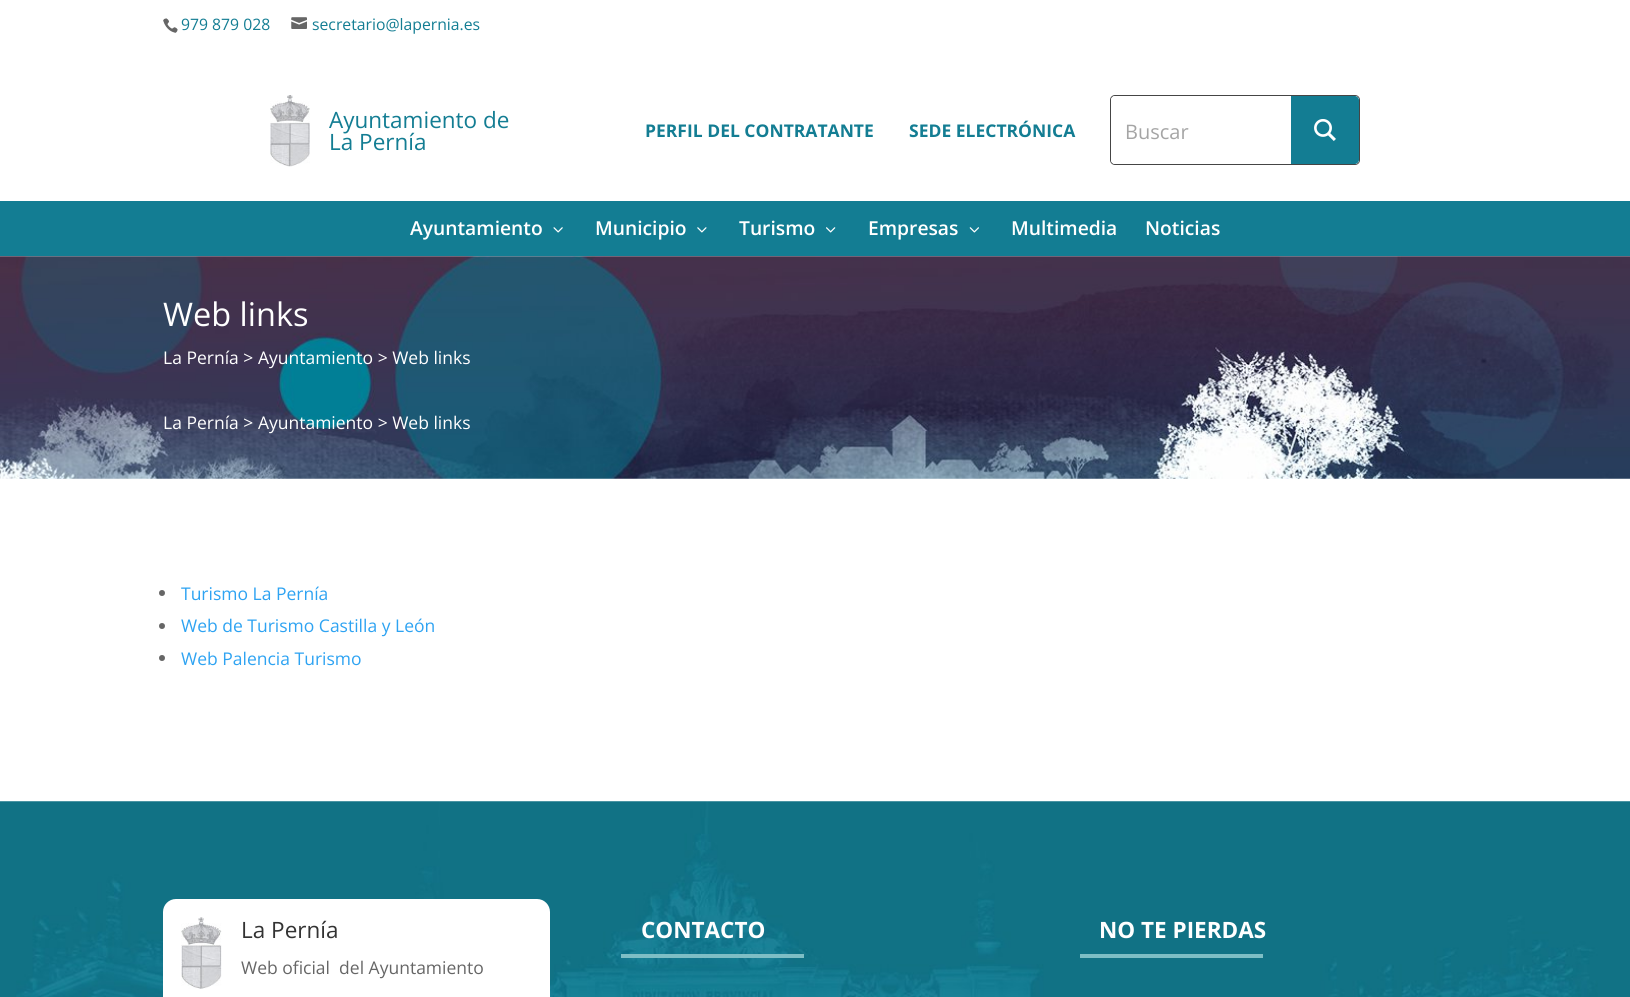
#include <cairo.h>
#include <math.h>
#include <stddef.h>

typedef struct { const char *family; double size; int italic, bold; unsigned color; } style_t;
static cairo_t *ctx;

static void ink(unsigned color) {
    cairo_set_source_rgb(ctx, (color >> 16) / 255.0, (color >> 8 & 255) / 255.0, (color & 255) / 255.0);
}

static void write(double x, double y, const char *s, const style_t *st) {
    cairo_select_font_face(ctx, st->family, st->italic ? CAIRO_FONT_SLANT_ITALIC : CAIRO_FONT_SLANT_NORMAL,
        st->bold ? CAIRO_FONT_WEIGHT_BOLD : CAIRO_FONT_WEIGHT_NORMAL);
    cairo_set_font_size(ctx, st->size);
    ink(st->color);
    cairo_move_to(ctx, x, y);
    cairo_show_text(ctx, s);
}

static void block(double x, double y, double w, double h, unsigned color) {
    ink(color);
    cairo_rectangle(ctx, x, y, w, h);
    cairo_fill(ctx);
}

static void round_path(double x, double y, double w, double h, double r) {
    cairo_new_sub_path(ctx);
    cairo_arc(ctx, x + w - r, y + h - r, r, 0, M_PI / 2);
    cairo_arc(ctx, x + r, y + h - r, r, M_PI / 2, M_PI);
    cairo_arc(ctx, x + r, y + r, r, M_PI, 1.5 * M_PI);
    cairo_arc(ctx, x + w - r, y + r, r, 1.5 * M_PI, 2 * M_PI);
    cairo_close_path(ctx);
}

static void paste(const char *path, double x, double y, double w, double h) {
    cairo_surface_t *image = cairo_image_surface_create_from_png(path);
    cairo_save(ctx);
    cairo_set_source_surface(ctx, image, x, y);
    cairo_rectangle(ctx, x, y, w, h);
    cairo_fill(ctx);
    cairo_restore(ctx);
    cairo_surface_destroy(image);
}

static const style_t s1 = {"Open Sans", 15.75, 0, 0, 0x137d93};
static const style_t s2 = {"Open Sans", 22.5, 0, 0, 0x137d93};
static const style_t s3 = {"Open Sans", 17.5, 0, 1, 0x137d93};
static const style_t s4 = {"Open Sans", 20, 0, 0, 0xa5a5a5};
static const style_t s5 = {"Open Sans SemiBold", 19.25, 0, 0, 0xffffff};
static const style_t s6 = {"Open Sans", 32.5, 0, 0, 0xffffff};
static const style_t s7 = {"Open Sans", 17.5, 0, 0, 0xffffff};
static const style_t s8 = {"Open Sans", 17.5, 0, 0, 0x2ea3f2};
static const style_t s9 = {"Open Sans", 22.5, 0, 0, 0x333333};
static const style_t s10 = {"Open Sans", 17.5, 0, 0, 0x666666};
static const style_t s11 = {"Open Sans", 22.5, 0, 1, 0xffffff};

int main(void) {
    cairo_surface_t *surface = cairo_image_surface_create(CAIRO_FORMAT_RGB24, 1630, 997);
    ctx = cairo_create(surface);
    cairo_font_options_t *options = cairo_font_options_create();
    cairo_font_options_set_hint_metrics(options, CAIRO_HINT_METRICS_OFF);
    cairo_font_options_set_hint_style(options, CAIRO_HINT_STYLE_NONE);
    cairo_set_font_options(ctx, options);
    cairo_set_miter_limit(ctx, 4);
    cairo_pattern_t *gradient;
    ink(0xffffff);
    cairo_paint(ctx);
    paste("pic1.png", 163, 18, 15, 15);
    write(181, 30, "979 879 028", &s1);
    paste("pic2.png", 291, 17, 16, 12);
    write(312, 30, "secretario@lapernia.es", &s1);
    paste("pic3.png", 270, 95, 40, 72);
    write(329, 128, "Ayuntamiento de", &s2);
    write(329, 150, "La Pernía", &s2);
    write(645, 137, "PERFIL DEL CONTRATANTE", &s3);
    write(909, 137, "SEDE ELECTRÓNICA", &s3);
    cairo_save(ctx);
    round_path(1110, 95, 250, 70, 5);
    cairo_clip(ctx);
    gradient = cairo_pattern_create_radial(0, 0, 0, 0, 0, 1);
    cairo_pattern_set_matrix(gradient, &(cairo_matrix_t){1.0 / 175, 0, 0, 1.0 / 48, -1.0 * 1235 / 175, -1.0 * 130 / 48});
    cairo_pattern_add_color_stop_rgba(gradient, 0, 1, 0.988, 0.988, 1);
    cairo_pattern_add_color_stop_rgba(gradient, 1, 1, 1, 1, 1);
    cairo_set_source(ctx, gradient);
    cairo_pattern_destroy(gradient);
    cairo_rectangle(ctx, 1111, 96, 248, 68);
    cairo_fill(ctx);
    cairo_restore(ctx);
    round_path(1110.5, 95.5, 249, 69, 4.5);
    cairo_set_source_rgba(ctx, 0, 0, 0, 0.73);
    cairo_set_line_width(ctx, 1);
    cairo_stroke(ctx);
    ink(0xffffff);
    round_path(1111, 96, 248, 68, 4);
    cairo_fill(ctx);
    write(1125, 139, "Buscar", &s4);
    ink(0x137d93);
    cairo_new_path(ctx);
    cairo_move_to(ctx, 1291, 96);
    cairo_line_to(ctx, 1355, 96);
    cairo_curve_to(ctx, 1357, 96, 1359, 98, 1359, 100);
    cairo_line_to(ctx, 1359, 160);
    cairo_curve_to(ctx, 1359, 162, 1357, 164, 1355, 164);
    cairo_line_to(ctx, 1291, 164);
    cairo_close_path(ctx);
    cairo_fill(ctx);
    paste("pic4.png", 1314, 119, 22, 22);
    block(0, 201, 1630, 55, 0x137d93);
    write(410, 235, "Ayuntamiento", &s5);
    paste("pic5.png", 553, 227, 10, 6);
    write(595, 235, "Municipio", &s5);
    paste("pic6.png", 697, 227, 10, 6);
    write(739, 235, "Turismo", &s5);
    paste("pic7.png", 826, 227, 10, 6);
    write(868, 235, "Empresas", &s5);
    paste("pic8.png", 969, 227, 10, 6);
    write(1011, 235, "Multimedia", &s5);
    write(1145, 235, "Noticias", &s5);
    paste("pic9.png", 0, 256, 1630, 223);
    write(163, 326, "Web links", &s6);
    write(163, 364, "La Pernía > Ayuntamiento > Web links", &s7);
    write(163, 429, "La Pernía > Ayuntamiento > Web links", &s7);
    ink(0x666666);
    cairo_new_path(ctx);
    cairo_arc(ctx, 162, 593, 3, 0, 2 * M_PI);
    cairo_fill(ctx);
    write(181, 600, "Turismo La Pernía", &s8);
    ink(0x666666);
    cairo_new_path(ctx);
    cairo_arc(ctx, 162, 626, 3, 0, 2 * M_PI);
    cairo_fill(ctx);
    write(181, 632, "Web de Turismo Castilla y León", &s8);
    ink(0x666666);
    cairo_new_path(ctx);
    cairo_arc(ctx, 162, 658, 3, 0, 2 * M_PI);
    cairo_fill(ctx);
    write(181, 665, "Web Palencia Turismo", &s8);
    paste("pic10.png", 0, 801, 1630, 196);
    ink(0xffffff);
    round_path(163, 899, 387, 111, 13);
    cairo_fill(ctx);
    paste("pic11.png", 181, 917, 41, 72);
    write(241, 938, "La Pernía", &s9);
    write(241, 974, "Web oficial  del Ayuntamiento", &s10);
    write(641, 938, "CONTACTO", &s11);
    block(621, 954, 183, 4, 0x7ebec5);
    write(1099, 938, "NO TE PIERDAS", &s11);
    block(1080, 954, 183, 4, 0x7ebec5);
    cairo_surface_write_to_png(surface, "screenshot.png");
    cairo_font_options_destroy(options);
    cairo_destroy(ctx);
    cairo_surface_destroy(surface);
    return 0;
}
